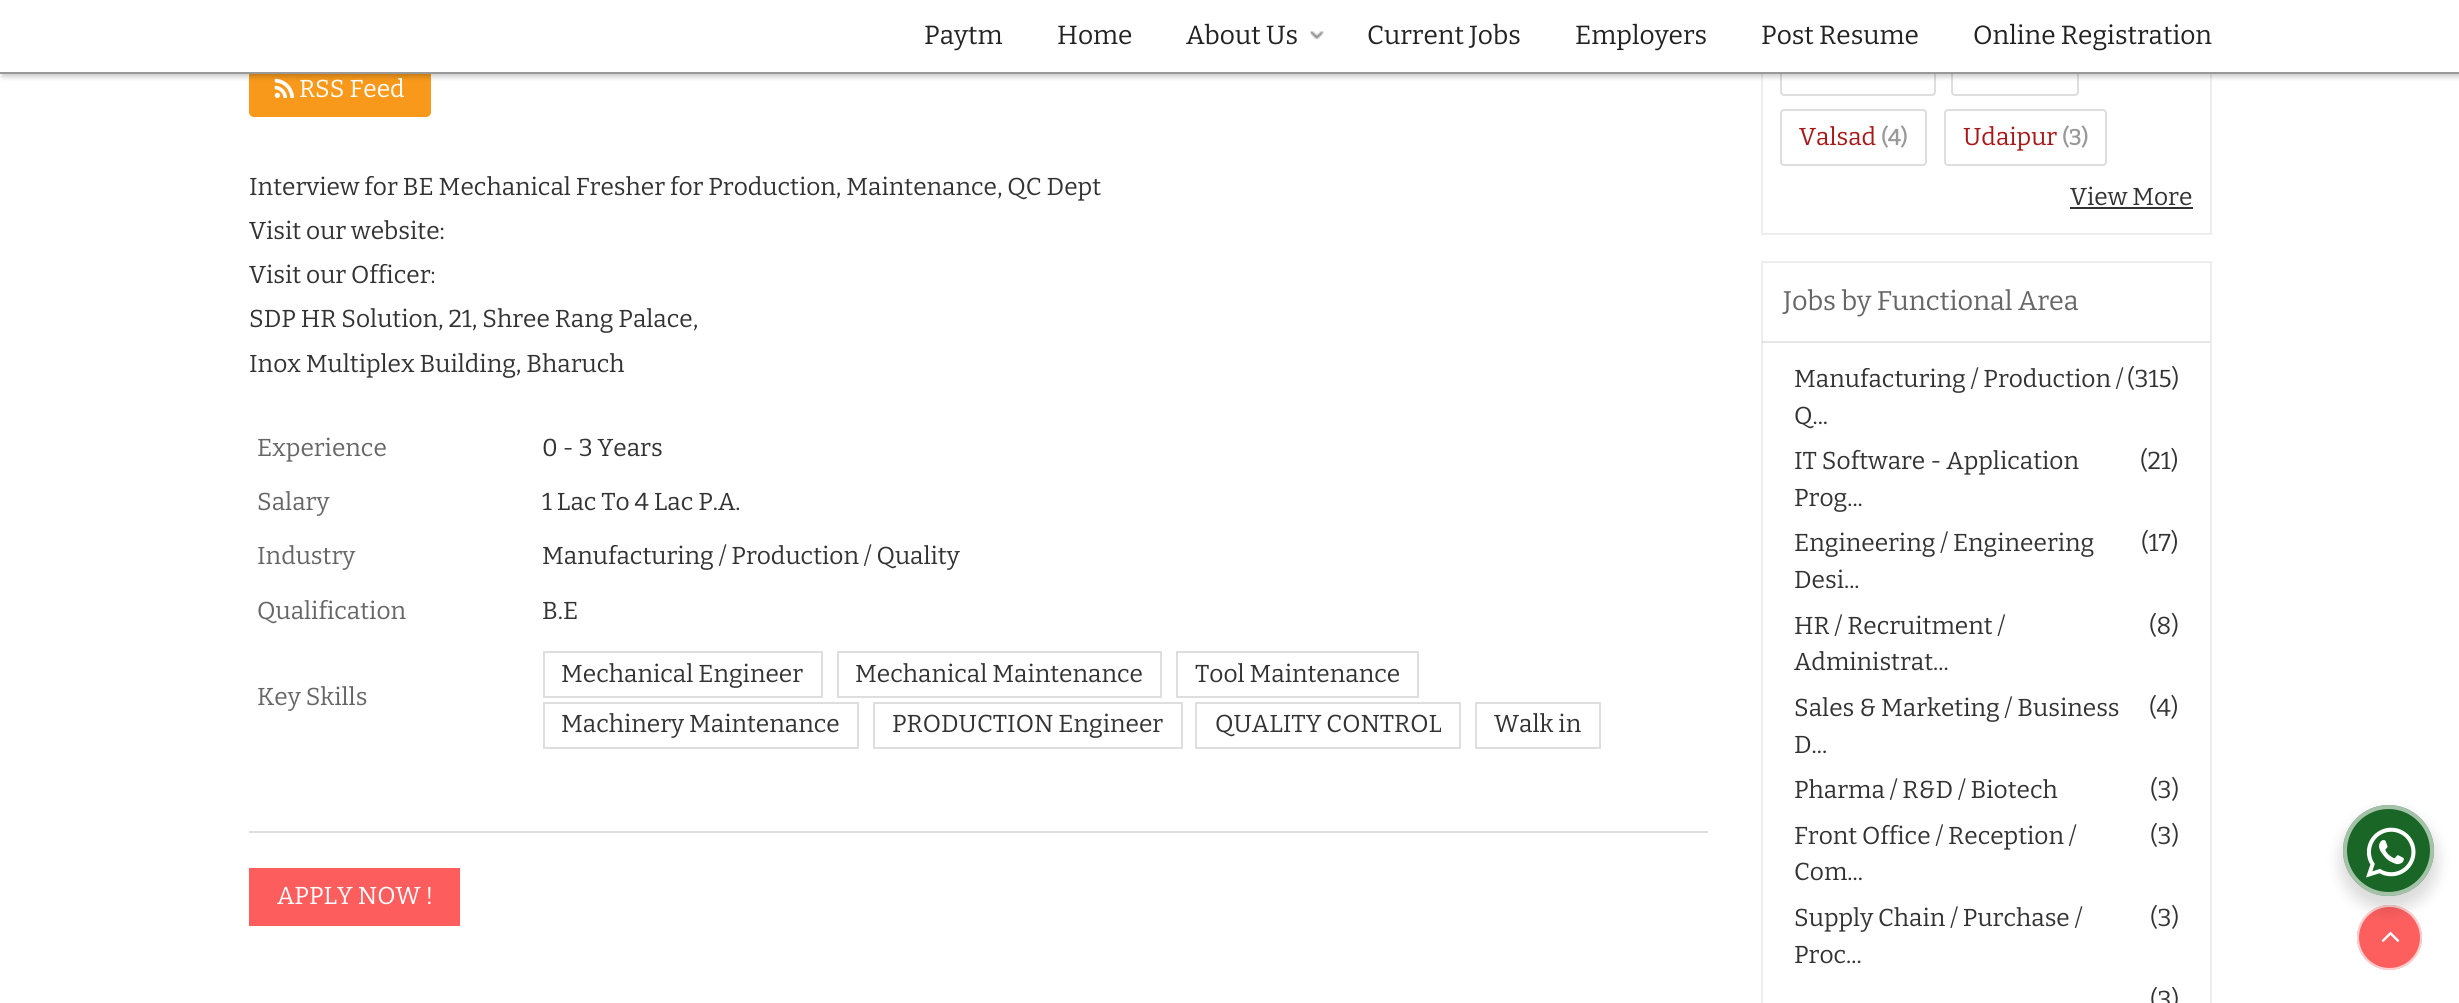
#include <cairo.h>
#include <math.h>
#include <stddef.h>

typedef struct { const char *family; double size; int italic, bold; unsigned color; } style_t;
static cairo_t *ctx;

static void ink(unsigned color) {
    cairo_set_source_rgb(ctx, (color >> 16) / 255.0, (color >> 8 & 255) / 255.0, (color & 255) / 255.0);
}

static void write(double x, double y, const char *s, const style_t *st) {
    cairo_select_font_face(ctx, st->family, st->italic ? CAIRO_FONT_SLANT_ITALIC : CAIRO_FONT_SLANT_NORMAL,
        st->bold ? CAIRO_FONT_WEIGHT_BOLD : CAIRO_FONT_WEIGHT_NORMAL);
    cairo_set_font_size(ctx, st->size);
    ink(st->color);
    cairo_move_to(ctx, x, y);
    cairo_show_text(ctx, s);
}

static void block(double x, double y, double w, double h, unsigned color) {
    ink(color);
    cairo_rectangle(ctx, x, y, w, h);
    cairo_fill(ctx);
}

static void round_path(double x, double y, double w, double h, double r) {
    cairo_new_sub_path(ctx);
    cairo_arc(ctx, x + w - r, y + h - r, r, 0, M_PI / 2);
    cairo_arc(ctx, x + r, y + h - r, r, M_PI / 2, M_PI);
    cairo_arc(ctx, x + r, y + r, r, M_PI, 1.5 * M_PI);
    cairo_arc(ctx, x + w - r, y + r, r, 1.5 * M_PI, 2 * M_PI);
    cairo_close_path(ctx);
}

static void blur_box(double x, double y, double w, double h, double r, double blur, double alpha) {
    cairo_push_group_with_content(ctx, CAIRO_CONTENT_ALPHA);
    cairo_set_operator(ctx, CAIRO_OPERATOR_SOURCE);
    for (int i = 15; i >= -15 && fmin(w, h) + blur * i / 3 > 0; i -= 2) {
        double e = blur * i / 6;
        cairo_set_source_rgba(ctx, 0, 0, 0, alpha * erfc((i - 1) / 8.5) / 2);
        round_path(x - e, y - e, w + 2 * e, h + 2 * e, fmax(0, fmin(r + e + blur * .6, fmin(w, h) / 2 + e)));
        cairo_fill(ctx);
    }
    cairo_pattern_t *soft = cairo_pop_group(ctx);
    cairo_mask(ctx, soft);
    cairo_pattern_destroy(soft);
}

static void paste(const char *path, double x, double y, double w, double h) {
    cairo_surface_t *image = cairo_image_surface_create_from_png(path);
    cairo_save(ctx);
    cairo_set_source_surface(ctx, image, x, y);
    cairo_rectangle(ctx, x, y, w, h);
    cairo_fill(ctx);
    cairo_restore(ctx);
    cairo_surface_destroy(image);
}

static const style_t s1 = {"Bitter Thin", 26.25, 0, 0, 0x222222};
static const style_t s2 = {"Bitter Thin", 24.5, 0, 0, 0xffffff};
static const style_t s3 = {"Bitter Thin", 24.5, 0, 0, 0x333333};
static const style_t s4 = {"Bitter Thin", 24.5, 0, 0, 0x666666};
static const style_t s5 = {"Bitter Thin", 24.5, 0, 0, 0xa81818};
static const style_t s6 = {"Bitter", 22, 0, 1, 0x999999};
static const style_t s7 = {"Bitter Thin", 27, 0, 0, 0x666666};

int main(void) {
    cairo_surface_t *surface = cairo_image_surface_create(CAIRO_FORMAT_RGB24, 2459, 1003);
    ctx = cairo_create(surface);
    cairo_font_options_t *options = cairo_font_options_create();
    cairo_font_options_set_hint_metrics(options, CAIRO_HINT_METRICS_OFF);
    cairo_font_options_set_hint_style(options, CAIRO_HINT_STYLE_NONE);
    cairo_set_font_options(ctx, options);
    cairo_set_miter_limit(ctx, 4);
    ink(0xffffff);
    cairo_paint(ctx);
    ink(0xf8991b);
    round_path(249, 63, 182, 54, 5);
    cairo_fill(ctx);
    paste("pic2.png", 274, 78, 20, 20);
    cairo_rectangle(ctx, 1762, -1, 449, 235);
    ink(0xededed);
    cairo_stroke(ctx);
    round_path(1781, 40, 154, 55, 3);
    ink(0xdedede);
    cairo_stroke(ctx);
    round_path(1952, 40, 126, 55, 3);
    cairo_stroke(ctx);
    ink(0x000000);
    blur_box(2, 4, 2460, 73, 0, 2.5, 0.2);
    block(0, 0, 2459, 72, 0xffffff);
    block(0, 72, 2459, 2, 0x999999);
    write(924, 44, "Paytm", &s1);
    write(1057, 44, "Home", &s1);
    write(1186, 44, "About Us", &s1);
    paste("pic1.png", 1310, 31, 14, 9);
    write(1367, 44, "Current Jobs", &s1);
    write(1575, 44, "Employers", &s1);
    write(1761, 44, "Post Resume", &s1);
    write(1973, 44, "Online Registration", &s1);
    write(299, 97, "RSS Feed", &s2);
    write(249, 195, "Interview for BE Mechanical Fresher for Production, Maintenance, QC Dept", &s3);
    write(249, 239, "Visit our website:", &s3);
    write(249, 283, "Visit our Officer:", &s3);
    write(249, 327, "SDP HR Solution, 21, Shree Rang Palace,", &s3);
    write(249, 372, "Inox Multiplex Building, Bharuch", &s3);
    write(257, 456, "Experience", &s4);
    write(542, 456, "0 - 3 Years", &s3);
    write(257, 510, "Salary", &s4);
    write(542, 510, "1 Lac To 4 Lac P.A.", &s3);
    write(257, 564, "Industry", &s4);
    write(542, 564, "Manufacturing / Production / Quality", &s3);
    write(257, 619, "Qualification", &s4);
    write(542, 619, "B.E", &s3);
    write(257, 705, "Key Skills", &s4);
    cairo_rectangle(ctx, 544, 652, 278, 45);
    ink(0xdedede);
    cairo_stroke(ctx);
    write(561, 682, "Mechanical Engineer", &s3);
    cairo_rectangle(ctx, 838, 652, 323, 45);
    ink(0xdedede);
    cairo_stroke(ctx);
    write(855, 682, "Mechanical Maintenance", &s3);
    cairo_rectangle(ctx, 1177, 652, 241, 45);
    ink(0xdedede);
    cairo_stroke(ctx);
    write(1195, 682, "Tool Maintenance", &s3);
    cairo_rectangle(ctx, 544, 703, 314, 45);
    ink(0xdedede);
    cairo_stroke(ctx);
    write(561, 732, "Machinery Maintenance", &s3);
    cairo_rectangle(ctx, 874, 703, 308, 45);
    ink(0xdedede);
    cairo_stroke(ctx);
    write(892, 732, "PRODUCTION Engineer", &s3);
    cairo_rectangle(ctx, 1196, 703, 264, 45);
    ink(0xdedede);
    cairo_stroke(ctx);
    write(1215, 732, "QUALITY CONTROL", &s3);
    cairo_rectangle(ctx, 1476, 703, 124, 45);
    ink(0xdedede);
    cairo_stroke(ctx);
    write(1494, 732, "Walk in", &s3);
    block(249, 831, 1459, 2, 0xdedede);
    block(249, 868, 211, 58, 0xfd5d5d);
    write(277, 904, "APPLY NOW !", &s2);
    round_path(1781, 110, 145, 55, 3);
    ink(0xdedede);
    cairo_stroke(ctx);
    write(1799, 145, "Valsad", &s5);
    write(1881, 145, "(4)", &s6);
    round_path(1945, 110, 161, 55, 3);
    ink(0xdedede);
    cairo_stroke(ctx);
    write(1963, 145, "Udaipur", &s5);
    write(2062, 145, "(3)", &s6);
    write(2070, 205, "View More", &s3);
    block(2070, 207, 123, 2, 0x333333);
    cairo_rectangle(ctx, 1762, 262, 449, 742);
    ink(0xededed);
    cairo_stroke(ctx);
    cairo_set_source_rgba(ctx, 0, 0, 0, 0.1);
    cairo_rectangle(ctx, 1762, 341, 448, 2);
    cairo_fill(ctx);
    write(1783, 310, "Jobs by Functional Area", &s7);
    write(1794, 387, "Manufacturing / Production /", &s3);
    write(2127, 387, "(315)", &s3);
    write(1794, 424, "Q...", &s3);
    write(1794, 469, "IT Software - Application", &s3);
    write(2140, 469, "(21)", &s3);
    write(1794, 506, "Prog...", &s3);
    write(1794, 551, "Engineering / Engineering", &s3);
    write(2141, 551, "(17)", &s3);
    write(1794, 588, "Desi...", &s3);
    write(1794, 634, "HR / Recruitment /", &s3);
    write(2149, 634, "(8)", &s3);
    write(1794, 670, "Administrat...", &s3);
    write(1794, 716, "Sales & Marketing / Business", &s3);
    write(2149, 716, "(4)", &s3);
    write(1794, 753, "D...", &s3);
    write(1794, 798, "Pharma / R&D / Biotech", &s3);
    write(2150, 798, "(3)", &s3);
    write(1794, 844, "Front Office / Reception /", &s3);
    write(2150, 844, "(3)", &s3);
    write(1794, 880, "Com...", &s3);
    write(1794, 926, "Supply Chain / Purchase /", &s3);
    write(2150, 926, "(3)", &s3);
    write(1794, 963, "Proc...", &s3);
    write(2150, 1008, "(3)", &s3);
    ink(0xfd5f5f);
    cairo_new_path(ctx);
    cairo_arc(ctx, 2389.5, 937.5, 32.5, 0, 2 * M_PI);
    cairo_fill(ctx);
    cairo_arc(ctx, 2389.5, 937.5, 31.5, 0, 2 * M_PI);
    cairo_set_source_rgba(ctx, 1, 1, 1, 0.7);
    cairo_stroke(ctx);
    paste("pic4.png", 2381, 931, 19, 11);
    ink(0x000000);
    blur_box(2340, 812, 98, 98, 49, 7, 0.14);
    ink(0x196626);
    cairo_arc(ctx, 2388.5, 850.5, 45.5, 0, 2 * M_PI);
    cairo_fill(ctx);
    cairo_arc(ctx, 2388.5, 850.5, 43.5, 0, 2 * M_PI);
    cairo_set_source_rgba(ctx, 1, 1, 1, 0.6);
    cairo_set_line_width(ctx, 4);
    cairo_stroke(ctx);
    paste("pic3.png", 2366, 827, 50, 51);
    cairo_surface_write_to_png(surface, "screenshot.png");
    cairo_font_options_destroy(options);
    cairo_destroy(ctx);
    cairo_surface_destroy(surface);
    return 0;
}
